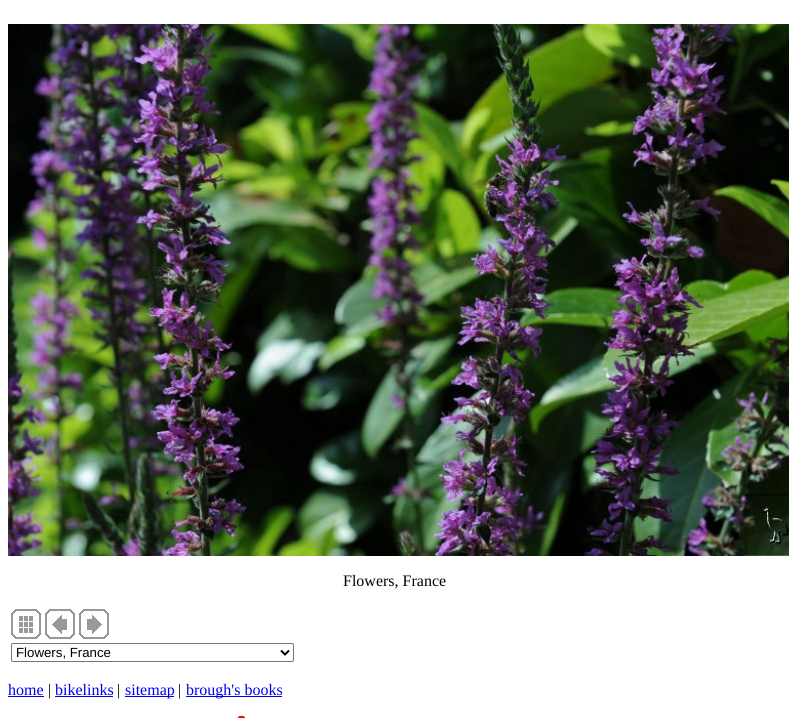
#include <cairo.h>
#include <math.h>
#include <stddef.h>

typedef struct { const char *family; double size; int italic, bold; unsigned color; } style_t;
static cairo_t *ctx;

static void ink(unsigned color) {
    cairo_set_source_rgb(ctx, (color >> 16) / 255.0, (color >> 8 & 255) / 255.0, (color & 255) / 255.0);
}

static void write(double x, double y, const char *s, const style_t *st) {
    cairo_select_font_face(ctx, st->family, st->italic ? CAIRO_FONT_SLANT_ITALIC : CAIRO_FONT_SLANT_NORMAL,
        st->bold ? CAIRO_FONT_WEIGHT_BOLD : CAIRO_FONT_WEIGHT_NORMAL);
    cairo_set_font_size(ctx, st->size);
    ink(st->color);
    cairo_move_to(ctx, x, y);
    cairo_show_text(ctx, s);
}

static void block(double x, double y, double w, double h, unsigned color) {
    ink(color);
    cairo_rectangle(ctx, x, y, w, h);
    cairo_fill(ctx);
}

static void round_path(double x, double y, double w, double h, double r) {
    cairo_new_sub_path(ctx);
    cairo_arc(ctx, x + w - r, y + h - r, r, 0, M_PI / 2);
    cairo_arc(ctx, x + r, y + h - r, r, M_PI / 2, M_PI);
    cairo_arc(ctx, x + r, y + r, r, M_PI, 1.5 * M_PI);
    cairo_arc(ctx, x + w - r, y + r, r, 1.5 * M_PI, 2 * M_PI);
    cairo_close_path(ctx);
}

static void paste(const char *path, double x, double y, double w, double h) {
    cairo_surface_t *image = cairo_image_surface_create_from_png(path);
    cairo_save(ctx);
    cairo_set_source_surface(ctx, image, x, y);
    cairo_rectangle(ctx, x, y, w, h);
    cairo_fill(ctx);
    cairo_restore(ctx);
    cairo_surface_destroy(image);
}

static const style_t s1 = {"Liberation Serif", 16, 0, 0, 0x000000};
static const style_t s2 = {"Liberation Sans", 13.25, 0, 0, 0x000000};
static const style_t s3 = {"Liberation Serif", 16, 0, 0, 0x0000ee};

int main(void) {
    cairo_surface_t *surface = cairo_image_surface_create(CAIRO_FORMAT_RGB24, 789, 718);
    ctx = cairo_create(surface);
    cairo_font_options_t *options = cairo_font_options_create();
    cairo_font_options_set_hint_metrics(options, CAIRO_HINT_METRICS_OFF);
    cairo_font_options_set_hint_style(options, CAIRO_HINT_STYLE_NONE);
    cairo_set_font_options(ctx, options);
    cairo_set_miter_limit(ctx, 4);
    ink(0xffffff);
    cairo_paint(ctx);
    paste("pic1.png", 8, 24, 781, 532);
    write(343, 586, "Flowers, France", &s1);
    paste("pic2.png", 11, 609, 30, 30);
    paste("pic3.png", 45, 609, 30, 30);
    paste("pic4.png", 79, 609, 30, 30);
    round_path(11.5, 643.5, 282, 18, 1.5);
    ink(0x767676);
    cairo_set_line_width(ctx, 1);
    cairo_stroke(ctx);
    cairo_new_path(ctx);
    cairo_move_to(ctx, 281, 650.5);
    cairo_line_to(ctx, 285, 654.5);
    cairo_line_to(ctx, 289, 650.5);
    ink(0x000000);
    cairo_set_line_width(ctx, 2);
    cairo_stroke(ctx);
    write(16, 657, "Flowers, France", &s2);
    write(8, 695, "home", &s3);
    block(8, 696, 36, 1, 0x0000ee);
    write(48, 695, "|", &s1);
    write(55, 695, "bikelinks", &s3);
    block(55, 696, 58, 1, 0x0000ee);
    write(117, 695, "|", &s1);
    block(125, 696, 49, 1, 0x0000ee);
    write(125, 695, "sitemap", &s3);
    write(178, 695, "|", &s1);
    block(186, 696, 96, 1, 0x0000ee);
    write(186, 695, "brough's books", &s3);
    paste("pic5.png", 237, 715, 9, 3);
    cairo_surface_write_to_png(surface, "screenshot.png");
    cairo_font_options_destroy(options);
    cairo_destroy(ctx);
    cairo_surface_destroy(surface);
    return 0;
}
